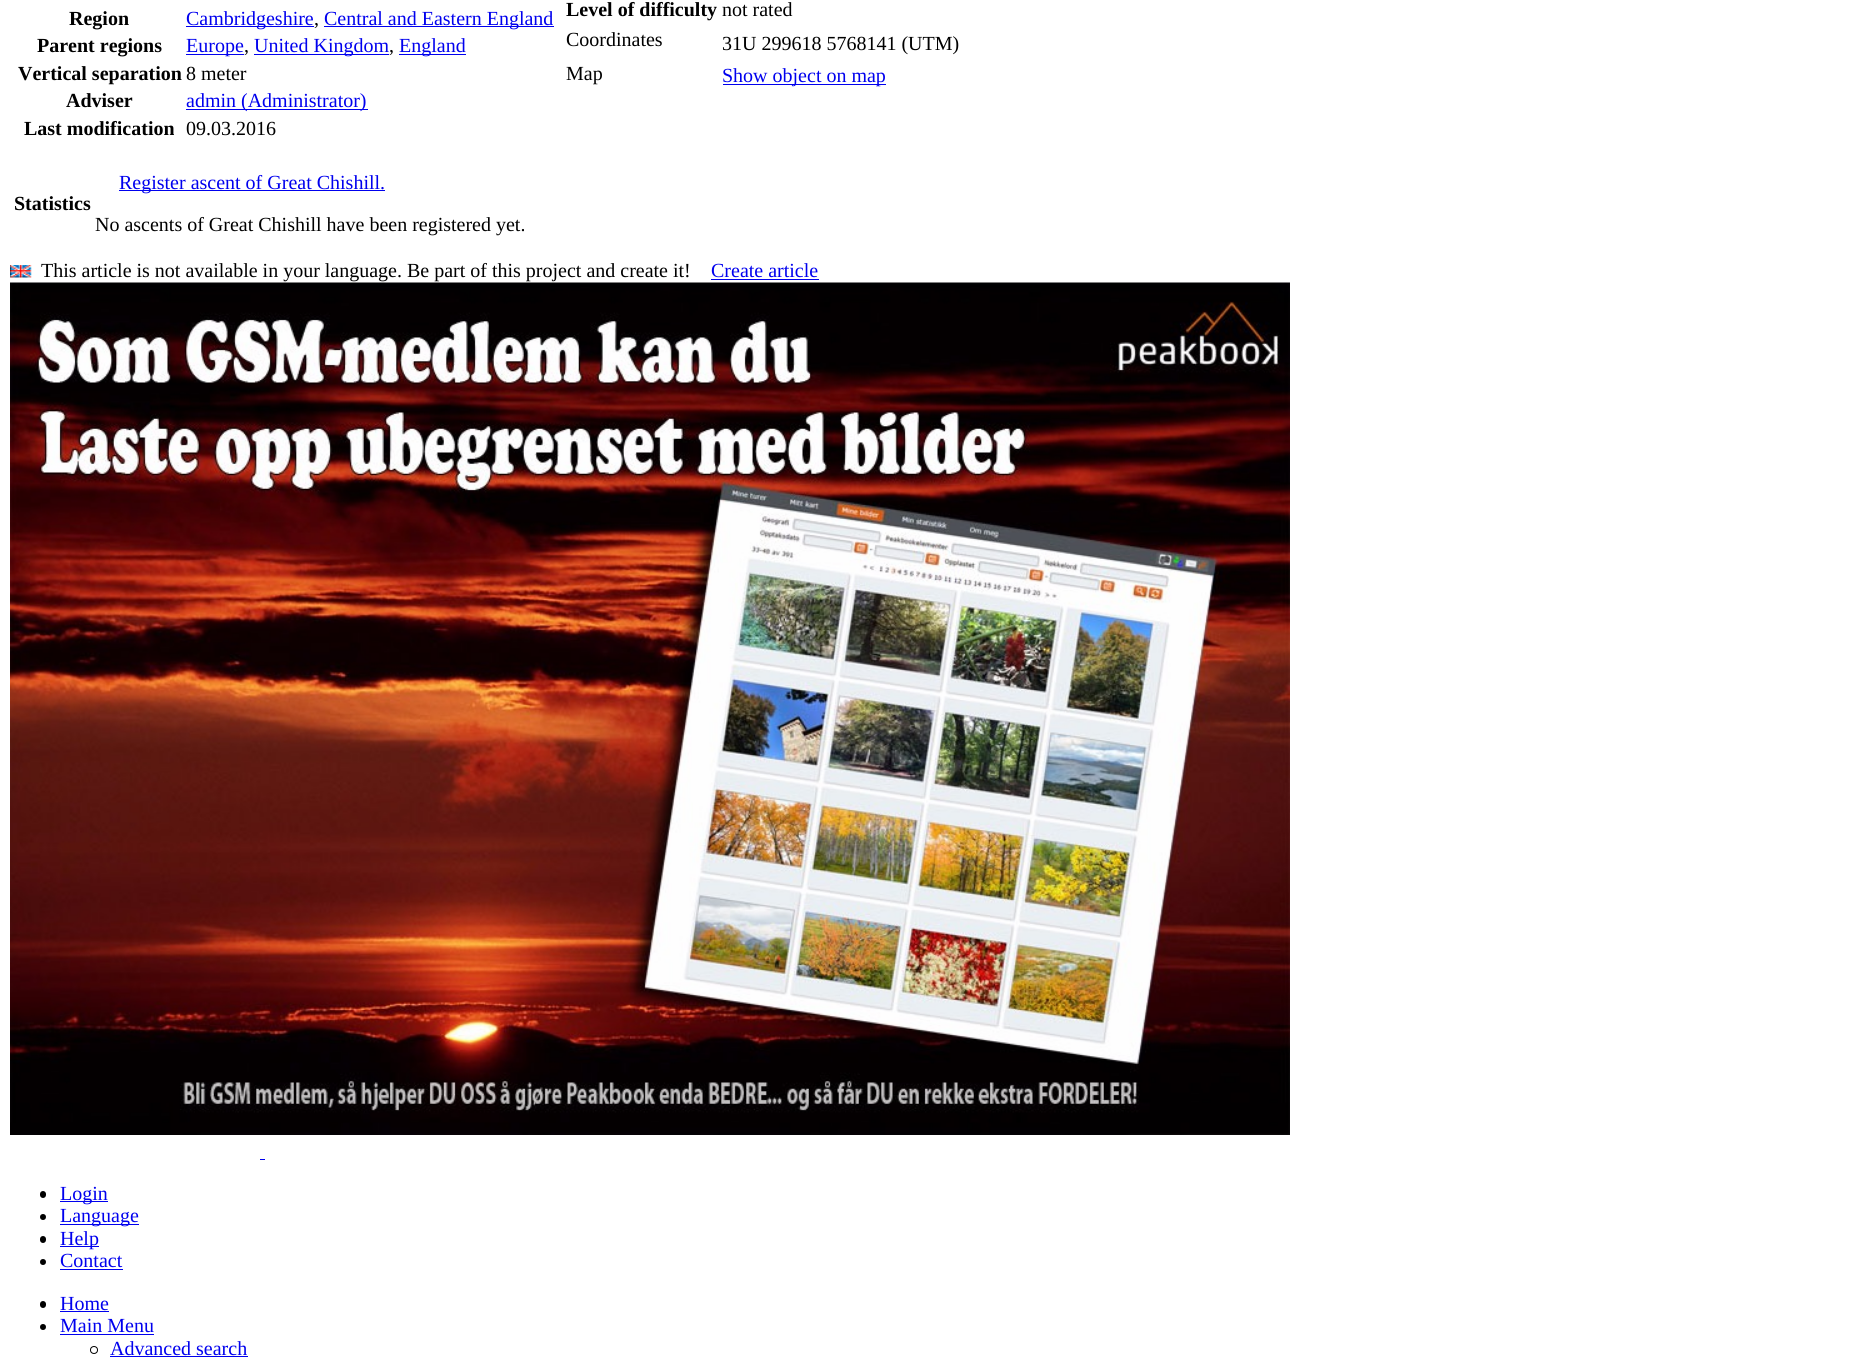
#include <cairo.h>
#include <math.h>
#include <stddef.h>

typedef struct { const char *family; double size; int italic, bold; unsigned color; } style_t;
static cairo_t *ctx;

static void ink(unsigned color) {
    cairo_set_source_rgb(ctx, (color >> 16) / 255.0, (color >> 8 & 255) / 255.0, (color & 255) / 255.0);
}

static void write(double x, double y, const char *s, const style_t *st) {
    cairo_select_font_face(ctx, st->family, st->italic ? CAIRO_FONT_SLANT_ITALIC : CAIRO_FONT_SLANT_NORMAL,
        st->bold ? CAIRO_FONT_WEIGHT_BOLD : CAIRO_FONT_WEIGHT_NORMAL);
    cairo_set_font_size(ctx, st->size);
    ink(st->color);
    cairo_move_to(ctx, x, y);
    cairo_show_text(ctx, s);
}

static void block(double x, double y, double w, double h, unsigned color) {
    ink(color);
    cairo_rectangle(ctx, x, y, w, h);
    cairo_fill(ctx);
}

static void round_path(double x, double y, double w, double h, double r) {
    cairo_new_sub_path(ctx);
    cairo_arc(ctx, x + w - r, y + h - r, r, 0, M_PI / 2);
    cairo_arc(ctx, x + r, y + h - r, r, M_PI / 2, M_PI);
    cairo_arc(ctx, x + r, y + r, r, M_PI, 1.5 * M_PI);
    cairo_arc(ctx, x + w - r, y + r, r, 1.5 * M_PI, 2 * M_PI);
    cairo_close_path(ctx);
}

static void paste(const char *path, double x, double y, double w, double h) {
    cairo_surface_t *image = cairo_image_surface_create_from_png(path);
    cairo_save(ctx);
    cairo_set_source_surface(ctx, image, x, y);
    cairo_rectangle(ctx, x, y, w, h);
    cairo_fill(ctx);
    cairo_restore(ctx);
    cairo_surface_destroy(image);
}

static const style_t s1 = {"Liberation Serif", 20, 0, 1, 0x000000};
static const style_t s2 = {"Liberation Serif", 20, 0, 0, 0x0000ee};
static const style_t s3 = {"Liberation Serif", 20, 0, 0, 0x000000};

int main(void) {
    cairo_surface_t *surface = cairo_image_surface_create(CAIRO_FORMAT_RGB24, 1855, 1359);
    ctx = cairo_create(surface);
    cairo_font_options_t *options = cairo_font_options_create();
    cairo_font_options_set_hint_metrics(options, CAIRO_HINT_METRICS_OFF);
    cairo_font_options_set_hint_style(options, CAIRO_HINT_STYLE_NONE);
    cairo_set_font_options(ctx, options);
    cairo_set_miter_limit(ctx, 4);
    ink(0xffffff);
    cairo_paint(ctx);
    write(69, 25, "Region", &s1);
    block(186, 26, 128, 1, 0x0000ee);
    write(186, 25, "Cambridgeshire", &s2);
    write(314, 25, ",", &s3);
    block(324, 26, 230, 1, 0x0000ee);
    write(324, 25, "Central and Eastern England", &s2);
    write(37, 52, "Parent regions", &s1);
    block(186, 54, 58, 1, 0x0000ee);
    write(186, 52, "Europe", &s2);
    write(244, 52, ",", &s3);
    block(254, 54, 135, 1, 0x0000ee);
    write(254, 52, "United Kingdom", &s2);
    write(389, 52, ",", &s3);
    block(399, 54, 67, 1, 0x0000ee);
    write(399, 52, "England", &s2);
    write(18, 80, "Vertical separation", &s1);
    write(186, 80, "8 meter", &s3);
    write(66, 107, "Adviser", &s1);
    block(186, 109, 182, 1, 0x0000ee);
    write(186, 107, "admin (Administrator)", &s2);
    write(24, 135, "Last modification", &s1);
    write(186, 135, "09.03.2016", &s3);
    write(566, 16, "Level of difficulty", &s1);
    write(722, 16, "not rated", &s3);
    write(566, 46, "Coordinates", &s3);
    write(722, 50, "31U 299618 5768141 (UTM)", &s3);
    write(566, 80, "Map", &s3);
    block(723, 84, 163, 1, 0x0000ee);
    write(722, 82, "Show object on map", &s2);
    write(14, 210, "Statistics", &s1);
    block(119, 190, 266, 1, 0x0000ee);
    write(119, 189, "Register ascent of Great Chishill.", &s2);
    write(95, 231, "No ascents of Great Chishill have been registered yet.", &s3);
    paste("pic1.png", 10, 265, 22, 13);
    write(41, 277, "This article is not available in your language. Be part of this project and create it!", &s3);
    write(711, 277, "Create article", &s2);
    block(711, 279, 108, 1, 0x0000ee);
    paste("pic2.png", 10, 282, 1280, 853);
    block(260, 1159, 5, 1, 0x0000ee);
    ink(0x000000);
    round_path(40, 1191, 6, 7, 3);
    cairo_fill(ctx);
    block(60, 1201, 48, 1, 0x0000ee);
    write(60, 1200, "Login", &s2);
    ink(0x000000);
    cairo_new_path(ctx);
    cairo_arc(ctx, 43, 1217, 3, 0, 2 * M_PI);
    cairo_fill(ctx);
    block(60, 1224, 79, 1, 0x0000ee);
    write(60, 1222, "Language", &s2);
    ink(0x000000);
    round_path(40, 1236, 6, 7, 3);
    cairo_fill(ctx);
    block(60, 1246, 39, 1, 0x0000ee);
    write(60, 1245, "Help", &s2);
    ink(0x000000);
    cairo_new_path(ctx);
    cairo_arc(ctx, 43, 1262, 3, 0, 2 * M_PI);
    cairo_fill(ctx);
    write(60, 1267, "Contact", &s2);
    block(60, 1269, 63, 1, 0x0000ee);
    ink(0x000000);
    round_path(40, 1301, 6, 7, 3);
    cairo_fill(ctx);
    write(60, 1310, "Home", &s2);
    block(60, 1311, 49, 1, 0x0000ee);
    ink(0x000000);
    cairo_new_path(ctx);
    cairo_arc(ctx, 43, 1327, 3, 0, 2 * M_PI);
    cairo_fill(ctx);
    write(60, 1332, "Main Menu", &s2);
    block(60, 1334, 94, 1, 0x0000ee);
    cairo_new_path(ctx);
    cairo_arc(ctx, 94, 1350, 3.5, 0, 2 * M_PI);
    ink(0x000000);
    cairo_set_line_width(ctx, 1);
    cairo_stroke(ctx);
    write(110, 1355, "Advanced search", &s2);
    block(110, 1356, 138, 1, 0x0000ee);
    cairo_surface_write_to_png(surface, "screenshot.png");
    cairo_font_options_destroy(options);
    cairo_destroy(ctx);
    cairo_surface_destroy(surface);
    return 0;
}
